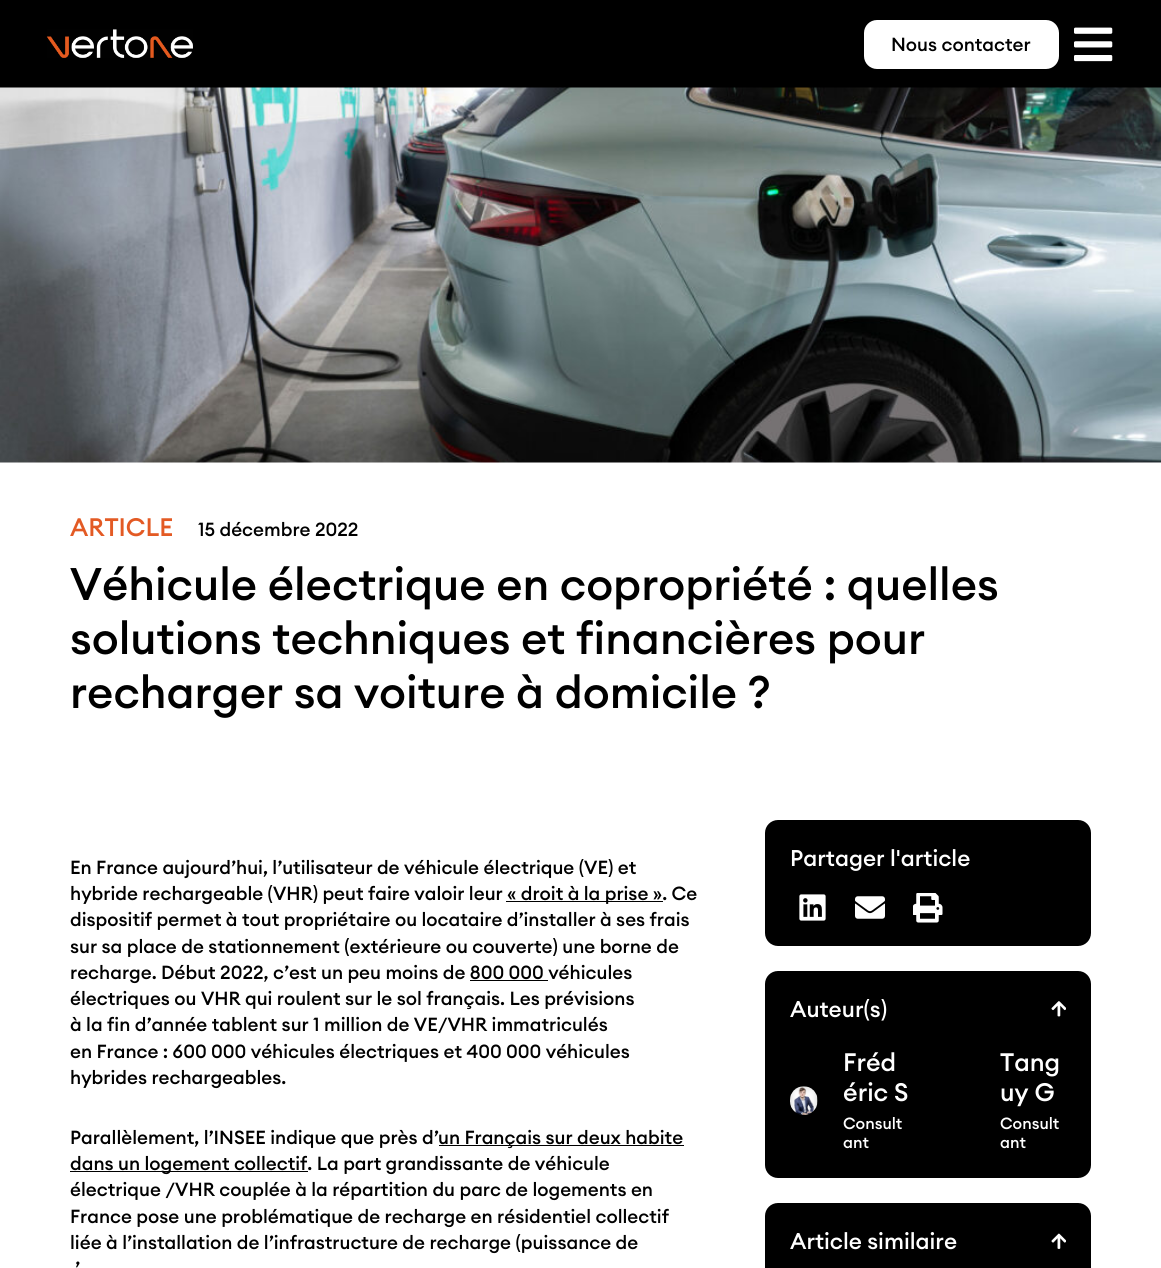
#include <cairo.h>
#include <math.h>
#include <stddef.h>

typedef struct { const char *family; double size; int italic, bold; unsigned color; } style_t;
static cairo_t *ctx;

static void ink(unsigned color) {
    cairo_set_source_rgb(ctx, (color >> 16) / 255.0, (color >> 8 & 255) / 255.0, (color & 255) / 255.0);
}

static void write(double x, double y, const char *s, const style_t *st) {
    cairo_select_font_face(ctx, st->family, st->italic ? CAIRO_FONT_SLANT_ITALIC : CAIRO_FONT_SLANT_NORMAL,
        st->bold ? CAIRO_FONT_WEIGHT_BOLD : CAIRO_FONT_WEIGHT_NORMAL);
    cairo_set_font_size(ctx, st->size);
    ink(st->color);
    cairo_move_to(ctx, x, y);
    cairo_show_text(ctx, s);
}

static void block(double x, double y, double w, double h, unsigned color) {
    ink(color);
    cairo_rectangle(ctx, x, y, w, h);
    cairo_fill(ctx);
}

static void round_path(double x, double y, double w, double h, double r) {
    cairo_new_sub_path(ctx);
    cairo_arc(ctx, x + w - r, y + h - r, r, 0, M_PI / 2);
    cairo_arc(ctx, x + r, y + h - r, r, M_PI / 2, M_PI);
    cairo_arc(ctx, x + r, y + r, r, M_PI, 1.5 * M_PI);
    cairo_arc(ctx, x + w - r, y + r, r, 1.5 * M_PI, 2 * M_PI);
    cairo_close_path(ctx);
}

static void paste(const char *path, double x, double y, double w, double h) {
    cairo_surface_t *image = cairo_image_surface_create_from_png(path);
    cairo_save(ctx);
    cairo_set_source_surface(ctx, image, x, y);
    cairo_rectangle(ctx, x, y, w, h);
    cairo_fill(ctx);
    cairo_restore(ctx);
    cairo_surface_destroy(image);
}

static const style_t s1 = {"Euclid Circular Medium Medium", 18.75, 0, 0, 0x000000};
static const style_t s2 = {"Euclid Circular Medium Medium", 25, 0, 0, 0xe35a24};
static const style_t s3 = {"Euclid Circular Medium Medium", 45, 0, 0, 0x000000};
static const style_t s4 = {"Euclid Circular Medium Medium", 22.5, 0, 0, 0xffffff};
static const style_t s5 = {"Euclid Circular Medium Medium", 25, 0, 0, 0xffffff};
static const style_t s6 = {"Euclid Circular Medium Medium", 16, 0, 0, 0xffffff};

int main(void) {
    cairo_surface_t *surface = cairo_image_surface_create(CAIRO_FORMAT_RGB24, 1161, 1268);
    ctx = cairo_create(surface);
    cairo_font_options_t *options = cairo_font_options_create();
    cairo_font_options_set_hint_metrics(options, CAIRO_HINT_METRICS_OFF);
    cairo_font_options_set_hint_style(options, CAIRO_HINT_STYLE_NONE);
    cairo_set_font_options(ctx, options);
    cairo_set_miter_limit(ctx, 4);
    ink(0xffffff);
    cairo_paint(ctx);
    block(0, 0, 1161, 88, 0x000000);
    paste("pic1.png", 46, 29, 147, 29);
    ink(0xffffff);
    round_path(864, 20, 195, 49, 13);
    cairo_fill(ctx);
    write(891, 51, "Nous contacter", &s1);
    paste("pic2.png", 1074, 27, 39, 35);
    paste("pic3.png", 0, 87, 1161, 376);
    write(70, 536, "ARTICLE", &s2);
    write(198, 536, "15 décembre 2022", &s1);
    write(70, 600, "Véhicule électrique en copropriété : quelles", &s3);
    write(70, 654, "solutions techniques et financières pour", &s3);
    write(70, 708, "recharger sa voiture à domicile ?", &s3);
    write(70, 874, "En France aujourd’hui, l’utilisateur de véhicule électrique (VE) et", &s1);
    write(70, 900, "hybride rechargeable (VHR) peut faire valoir leur", &s1);
    block(506, 901, 157, 1, 0x000000);
    write(507, 900, "« droit à la prise ». Ce", &s1);
    write(70, 926, "dispositif permet à tout propriétaire ou locataire d’installer à ses frais", &s1);
    write(70, 953, "sur sa place de stationnement (extérieure ou couverte) une borne de", &s1);
    write(70, 979, "recharge. Début 2022, c’est un peu moins de 800 000 véhicules", &s1);
    block(470, 980, 78, 1, 0x000000);
    write(70, 1005, "électriques ou VHR qui roulent sur le sol français. Les prévisions", &s1);
    write(70, 1031, "à la fin d’année tablent sur 1 million de VE/VHR immatriculés", &s1);
    write(70, 1058, "en France : 600 000 véhicules électriques et 400 000 véhicules", &s1);
    write(70, 1084, "hybrides rechargeables.", &s1);
    write(70, 1144, "Parallèlement, l’INSEE indique que près d’", &s1);
    block(439, 1145, 245, 1, 0x000000);
    write(438, 1144, "un Français sur deux habite", &s1);
    block(70, 1171, 238, 1, 0x000000);
    write(70, 1170, "dans un logement collectif. La part grandissante de véhicule", &s1);
    write(70, 1196, "électrique /VHR couplée à la répartition du parc de logements en", &s1);
    write(70, 1223, "France pose une problématique de recharge en résidentiel collectif", &s1);
    write(70, 1249, "liée à l’installation de l’infrastructure de recharge (puissance de", &s1);
    write(75, 1275, "’", &s1);
    round_path(765, 820, 326, 126, 13);
    cairo_fill(ctx);
    write(790, 866, "Partager l'article", &s4);
    paste("pic4.png", 799, 894, 27, 27);
    paste("pic5.png", 855, 896, 30, 23);
    paste("pic6.png", 913, 893, 30, 30);
    ink(0x000000);
    round_path(765, 971, 326, 207, 13);
    cairo_fill(ctx);
    write(790, 1017, "Auteur(s)", &s4);
    paste("pic7.png", 1051, 1001, 15, 16);
    paste("pic8.png", 790, 1086, 28, 29);
    write(843, 1071, "Fréd", &s5);
    write(843, 1101, "éric S", &s5);
    write(843, 1129, "Consult", &s6);
    write(843, 1148, "ant", &s6);
    write(1000, 1071, "Tang", &s5);
    write(1000, 1101, "uy G", &s5);
    write(1000, 1129, "Consult", &s6);
    write(1000, 1148, "ant", &s6);
    ink(0x000000);
    round_path(765, 1203, 326, 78, 13);
    cairo_fill(ctx);
    write(790, 1249, "Article similaire", &s4);
    paste("pic9.png", 1051, 1233, 15, 16);
    cairo_surface_write_to_png(surface, "screenshot.png");
    cairo_font_options_destroy(options);
    cairo_destroy(ctx);
    cairo_surface_destroy(surface);
    return 0;
}
